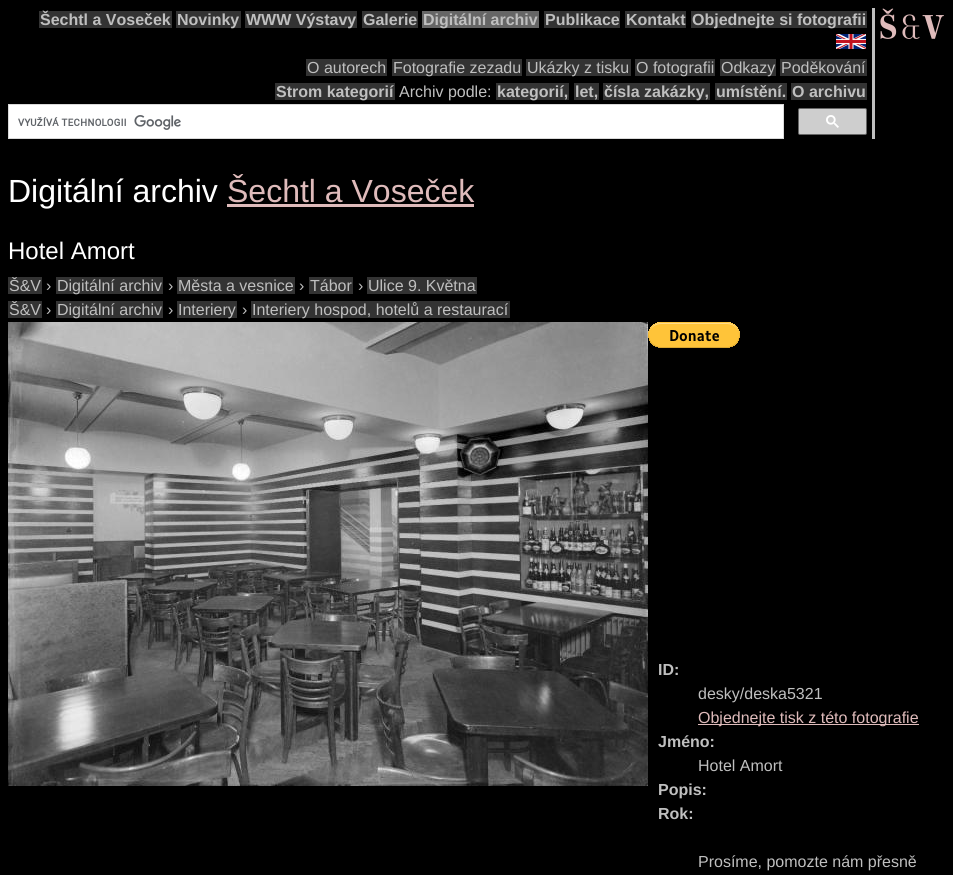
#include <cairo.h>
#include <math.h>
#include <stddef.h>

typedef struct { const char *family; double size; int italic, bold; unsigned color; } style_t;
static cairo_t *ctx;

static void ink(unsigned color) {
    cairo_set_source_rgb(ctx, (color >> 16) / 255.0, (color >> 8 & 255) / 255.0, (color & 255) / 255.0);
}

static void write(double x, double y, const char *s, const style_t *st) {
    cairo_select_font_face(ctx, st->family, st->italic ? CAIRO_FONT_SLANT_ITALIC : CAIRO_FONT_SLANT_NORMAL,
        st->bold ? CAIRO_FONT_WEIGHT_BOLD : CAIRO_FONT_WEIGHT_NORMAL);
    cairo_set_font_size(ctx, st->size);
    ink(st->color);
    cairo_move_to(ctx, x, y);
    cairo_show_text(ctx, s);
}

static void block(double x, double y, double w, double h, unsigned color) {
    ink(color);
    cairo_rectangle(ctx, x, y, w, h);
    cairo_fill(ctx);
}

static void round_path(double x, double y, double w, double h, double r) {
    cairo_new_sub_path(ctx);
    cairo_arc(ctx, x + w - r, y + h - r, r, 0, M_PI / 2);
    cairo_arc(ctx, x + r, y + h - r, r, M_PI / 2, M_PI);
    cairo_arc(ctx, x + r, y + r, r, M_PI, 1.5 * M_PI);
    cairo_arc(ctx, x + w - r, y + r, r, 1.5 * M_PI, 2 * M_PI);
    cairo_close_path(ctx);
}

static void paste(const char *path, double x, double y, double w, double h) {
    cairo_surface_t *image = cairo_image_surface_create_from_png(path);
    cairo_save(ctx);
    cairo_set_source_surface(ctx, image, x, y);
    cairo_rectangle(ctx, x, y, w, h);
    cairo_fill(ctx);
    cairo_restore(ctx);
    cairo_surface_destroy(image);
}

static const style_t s1 = {"Liberation Sans", 16, 0, 1, 0xbfbfbf};
static const style_t s2 = {"Liberation Sans", 16, 0, 0, 0xbfbfbf};
static const style_t s3 = {"Liberation Sans", 32, 0, 0, 0xffffff};
static const style_t s4 = {"Liberation Sans", 32, 0, 0, 0xdfbbbb};
static const style_t s5 = {"Liberation Sans", 24, 0, 0, 0xffffff};
static const style_t s6 = {"Liberation Sans", 16, 0, 0, 0xdfbbbb};

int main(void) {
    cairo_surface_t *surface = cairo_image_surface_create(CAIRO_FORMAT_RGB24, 953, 875);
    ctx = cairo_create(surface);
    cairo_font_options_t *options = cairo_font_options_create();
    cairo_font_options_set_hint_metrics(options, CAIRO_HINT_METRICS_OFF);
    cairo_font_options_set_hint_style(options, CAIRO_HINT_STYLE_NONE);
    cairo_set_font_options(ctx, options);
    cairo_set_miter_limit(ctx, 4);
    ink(0x000000);
    cairo_paint(ctx);
    block(872, 8, 3, 131, 0xbfbfbf);
    block(39, 11, 133, 17, 0x333333);
    write(40, 25, "Šechtl a Voseček", &s1);
    block(176, 11, 65, 17, 0x333333);
    write(177, 25, "Novinky", &s1);
    block(245, 11, 112, 17, 0x333333);
    write(246, 25, "WWW Výstavy", &s1);
    block(362, 11, 56, 17, 0x333333);
    write(363, 25, "Galerie", &s1);
    block(422, 11, 117, 17, 0x666666);
    write(423, 25, "Digitální archiv", &s1);
    block(544, 11, 76, 17, 0x333333);
    write(545, 25, "Publikace", &s1);
    block(625, 11, 61, 17, 0x333333);
    write(626, 25, "Kontakt", &s1);
    block(691, 11, 176, 17, 0x333333);
    write(692, 25, "Objednejte si fotografii", &s1);
    paste("pic1.png", 836, 34, 30, 15);
    block(306, 59, 81, 17, 0x333333);
    write(307, 73, "O autorech", &s2);
    block(392, 59, 130, 17, 0x333333);
    write(393, 73, "Fotografie zezadu", &s2);
    block(526, 59, 105, 17, 0x333333);
    write(527, 73, "Ukázky z tisku", &s2);
    block(635, 59, 80, 17, 0x333333);
    write(636, 73, "O fotografii", &s2);
    block(720, 59, 56, 17, 0x333333);
    write(721, 73, "Odkazy", &s2);
    block(780, 59, 87, 17, 0x333333);
    write(781, 73, "Poděkování", &s2);
    block(275, 83, 120, 17, 0x333333);
    write(276, 97, "Strom kategorií", &s1);
    write(399, 97, "Archiv podle:", &s2);
    block(496, 83, 73, 17, 0x333333);
    write(497, 97, "kategorií,", &s1);
    block(574, 83, 25, 17, 0x333333);
    write(575, 97, "let,", &s1);
    block(603, 83, 107, 17, 0x333333);
    write(604, 97, "čísla zakázky,", &s1);
    block(715, 83, 72, 17, 0x333333);
    write(716, 97, "umístění.", &s1);
    block(791, 83, 76, 17, 0x333333);
    write(792, 97, "O archivu", &s1);
    ink(0xffffff);
    cairo_rectangle(ctx, 8.5, 104.5, 775, 34);
    cairo_fill_preserve(ctx);
    ink(0xd9d9d9);
    cairo_set_line_width(ctx, 1);
    cairo_stroke(ctx);
    paste("pic2.png", 18, 115, 163, 15);
    ink(0xcecece);
    round_path(798.5, 108.5, 68, 26, 1.5);
    cairo_fill_preserve(ctx);
    ink(0x666666);
    cairo_stroke(ctx);
    paste("pic3.png", 826, 115, 13, 13);
    paste("pic4.png", 880, 8, 64, 31);
    write(8, 202, "Digitální archiv", &s3);
    write(227, 202, "Šechtl a Voseček", &s4);
    block(227, 204, 247, 3, 0xdfbbbb);
    write(8, 259, "Hotel Amort", &s5);
    block(8, 277, 34, 17, 0x333333);
    write(9, 291, "Š&V", &s2);
    write(46, 291, "›", &s2);
    block(56, 277, 107, 17, 0x333333);
    write(57, 291, "Digitální archiv", &s2);
    write(168, 291, "›", &s2);
    block(177, 277, 118, 17, 0x333333);
    write(178, 291, "Města a vesnice", &s2);
    write(299, 291, "›", &s2);
    block(309, 277, 44, 17, 0x333333);
    write(310, 291, "Tábor", &s2);
    write(358, 291, "›", &s2);
    block(367, 277, 110, 17, 0x333333);
    write(368, 291, "Ulice 9. Května", &s2);
    block(8, 301, 34, 17, 0x333333);
    write(9, 315, "Š&V", &s2);
    write(46, 315, "›", &s2);
    block(56, 301, 107, 17, 0x333333);
    write(57, 315, "Digitální archiv", &s2);
    write(168, 315, "›", &s2);
    block(177, 301, 60, 17, 0x333333);
    write(178, 315, "Interiery", &s2);
    write(242, 315, "›", &s2);
    block(251, 301, 259, 17, 0x333333);
    write(252, 315, "Interiery hospod, hotelů a restaurací", &s2);
    paste("pic5.png", 8, 322, 640, 464);
    paste("pic6.png", 648, 322, 92, 26);
    write(658, 675, "ID:", &s1);
    write(698, 699, "desky/deska5321", &s2);
    block(698, 724, 221, 1, 0xdfbbbb);
    write(698, 723, "Objednejte tisk z této fotografie", &s6);
    write(658, 747, "Jméno:", &s1);
    write(698, 771, "Hotel Amort", &s2);
    write(658, 795, "Popis:", &s1);
    write(658, 819, "Rok:", &s1);
    write(698, 867, "Prosíme, pomozte nám přesně", &s2);
    cairo_surface_write_to_png(surface, "screenshot.png");
    cairo_font_options_destroy(options);
    cairo_destroy(ctx);
    cairo_surface_destroy(surface);
    return 0;
}
